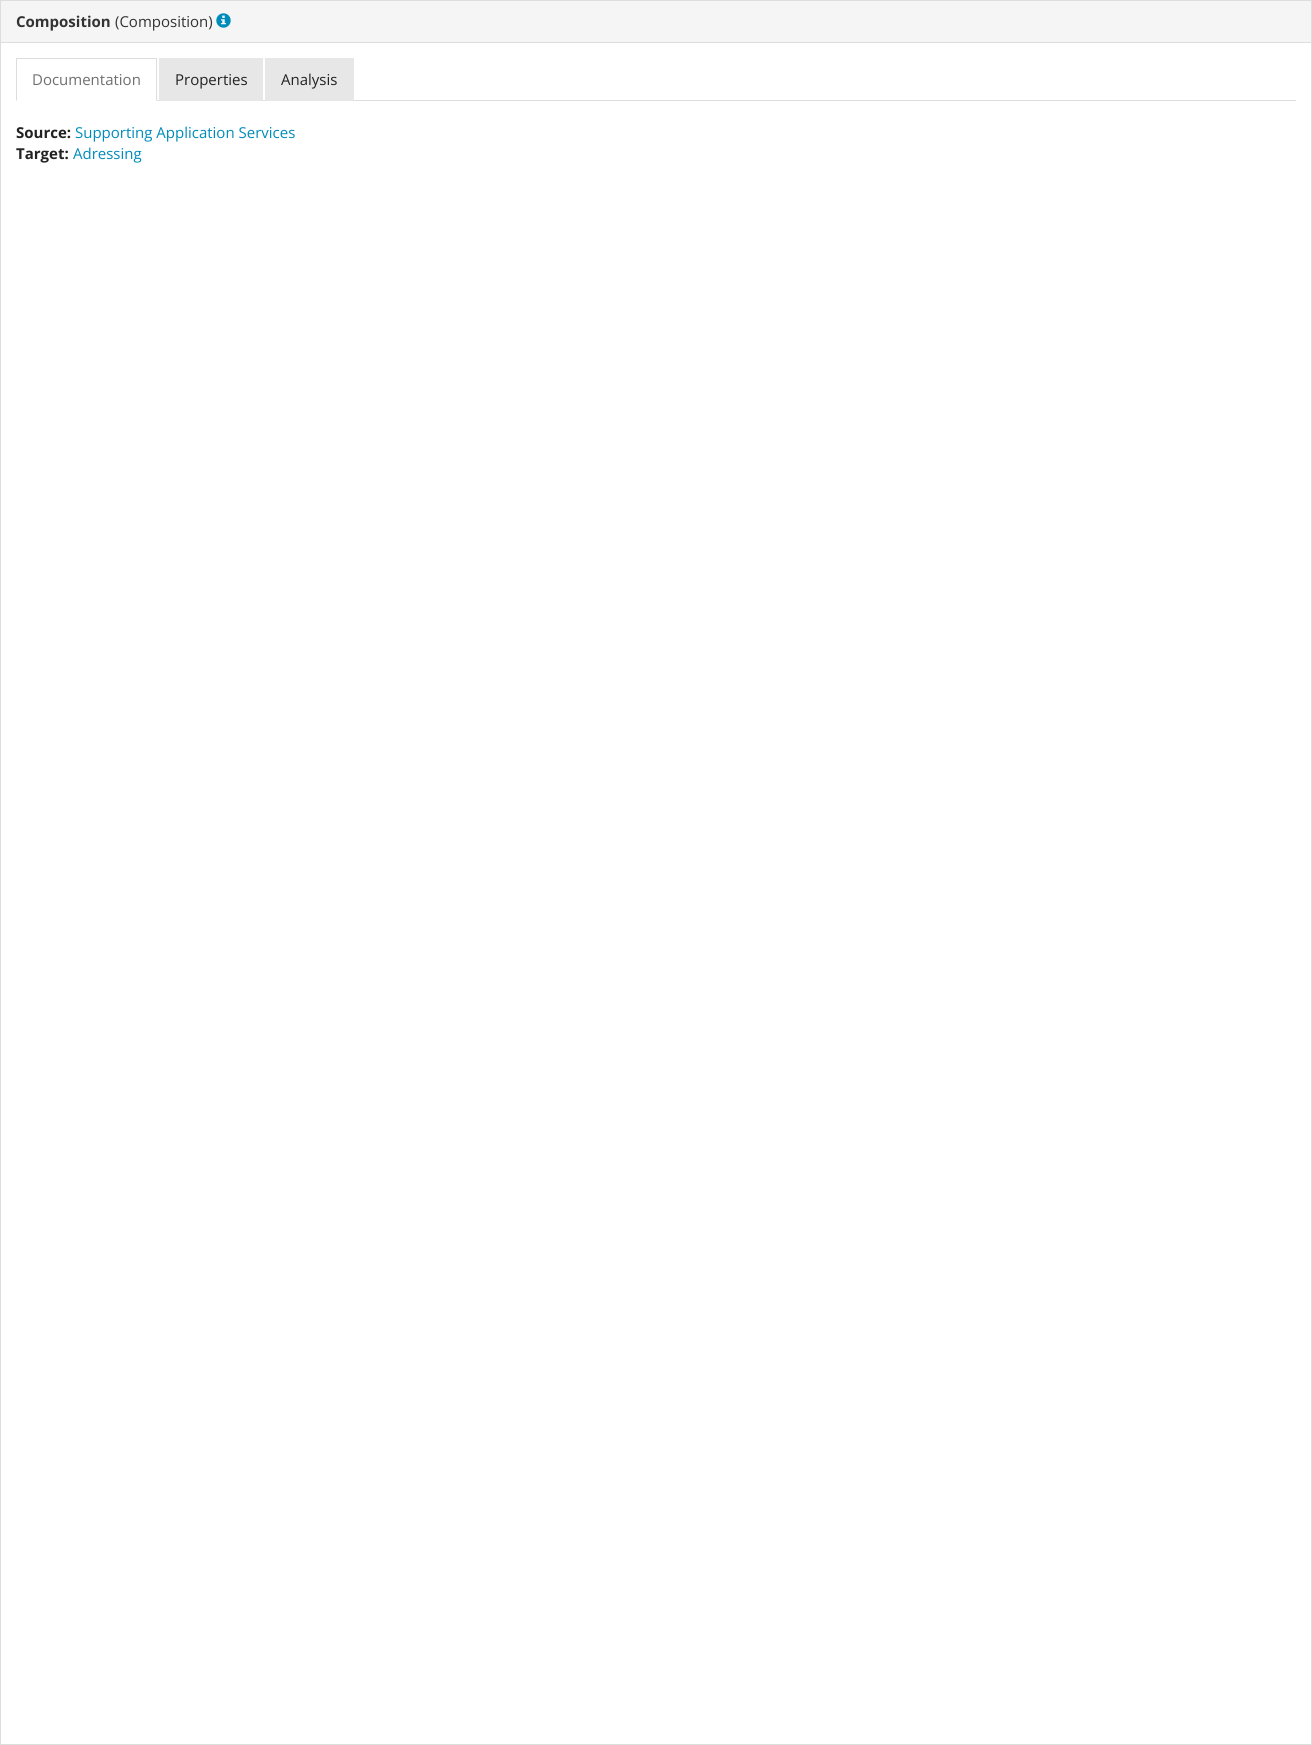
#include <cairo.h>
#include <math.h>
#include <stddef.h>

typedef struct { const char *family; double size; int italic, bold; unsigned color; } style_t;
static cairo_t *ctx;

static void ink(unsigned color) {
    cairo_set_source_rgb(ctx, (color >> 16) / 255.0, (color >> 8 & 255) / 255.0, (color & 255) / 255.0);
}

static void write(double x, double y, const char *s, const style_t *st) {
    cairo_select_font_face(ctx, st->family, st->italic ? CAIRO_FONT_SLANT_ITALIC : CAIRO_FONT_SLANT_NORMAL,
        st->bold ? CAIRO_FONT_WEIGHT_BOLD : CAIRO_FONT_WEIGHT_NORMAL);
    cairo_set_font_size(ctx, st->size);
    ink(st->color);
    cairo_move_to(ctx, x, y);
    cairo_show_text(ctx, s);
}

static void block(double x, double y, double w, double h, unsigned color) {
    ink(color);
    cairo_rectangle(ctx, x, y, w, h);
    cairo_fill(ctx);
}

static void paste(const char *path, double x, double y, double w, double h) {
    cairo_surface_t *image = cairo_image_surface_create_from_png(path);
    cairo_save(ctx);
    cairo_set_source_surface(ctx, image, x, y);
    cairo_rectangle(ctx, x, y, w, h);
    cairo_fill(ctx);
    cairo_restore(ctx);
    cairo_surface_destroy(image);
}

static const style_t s1 = {"Open Sans", 15, 0, 1, 0x333333};
static const style_t s2 = {"Open Sans", 15, 0, 0, 0x333333};
static const style_t s3 = {"Open Sans", 15, 0, 0, 0x6f6f6f};
static const style_t s4 = {"Open Sans", 15, 0, 0, 0x222222};
static const style_t s5 = {"Open Sans", 15, 0, 1, 0x222222};
static const style_t s6 = {"Open Sans", 15, 0, 0, 0x008cba};

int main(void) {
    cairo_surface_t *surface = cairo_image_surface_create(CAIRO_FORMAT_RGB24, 1312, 1745);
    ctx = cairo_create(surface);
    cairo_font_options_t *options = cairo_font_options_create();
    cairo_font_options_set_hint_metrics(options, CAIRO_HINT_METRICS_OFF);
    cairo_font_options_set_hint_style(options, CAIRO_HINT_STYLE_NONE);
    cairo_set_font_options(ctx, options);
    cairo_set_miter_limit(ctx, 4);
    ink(0xffffff);
    cairo_paint(ctx);
    cairo_rectangle(ctx, 0.5, 0.5, 1311, 1744);
    ink(0xdddddd);
    cairo_set_line_width(ctx, 1);
    cairo_stroke(ctx);
    block(1, 1, 1310, 41, 0xf5f5f5);
    block(1, 42, 1310, 1, 0xdddddd);
    write(16, 27, "Composition", &s1);
    write(115, 27, "(Composition)", &s2);
    paste("pic1.png", 216, 13, 15, 15);
    block(157, 100, 1139, 1, 0xdddddd);
    block(16, 58, 141, 1, 0xdddddd);
    cairo_new_path(ctx);
    cairo_move_to(ctx, 157, 58);
    cairo_line_to(ctx, 157, 101);
    cairo_line_to(ctx, 156, 100);
    cairo_line_to(ctx, 156, 59);
    cairo_close_path(ctx);
    cairo_fill(ctx);
    cairo_new_path(ctx);
    cairo_move_to(ctx, 16, 101);
    cairo_line_to(ctx, 16, 58);
    cairo_line_to(ctx, 17, 59);
    cairo_line_to(ctx, 17, 100);
    cairo_close_path(ctx);
    cairo_fill(ctx);
    write(32, 85, "Documentation", &s3);
    block(159, 58, 104, 43, 0xe7e7e7);
    write(175, 85, "Properties", &s4);
    block(265, 58, 89, 43, 0xe7e7e7);
    write(281, 85, "Analysis", &s4);
    write(16, 138, "Source:", &s5);
    write(75, 138, "Supporting Application Services", &s6);
    write(16, 159, "Target:", &s5);
    write(73, 159, "Adressing", &s6);
    cairo_surface_write_to_png(surface, "screenshot.png");
    cairo_font_options_destroy(options);
    cairo_destroy(ctx);
    cairo_surface_destroy(surface);
    return 0;
}
